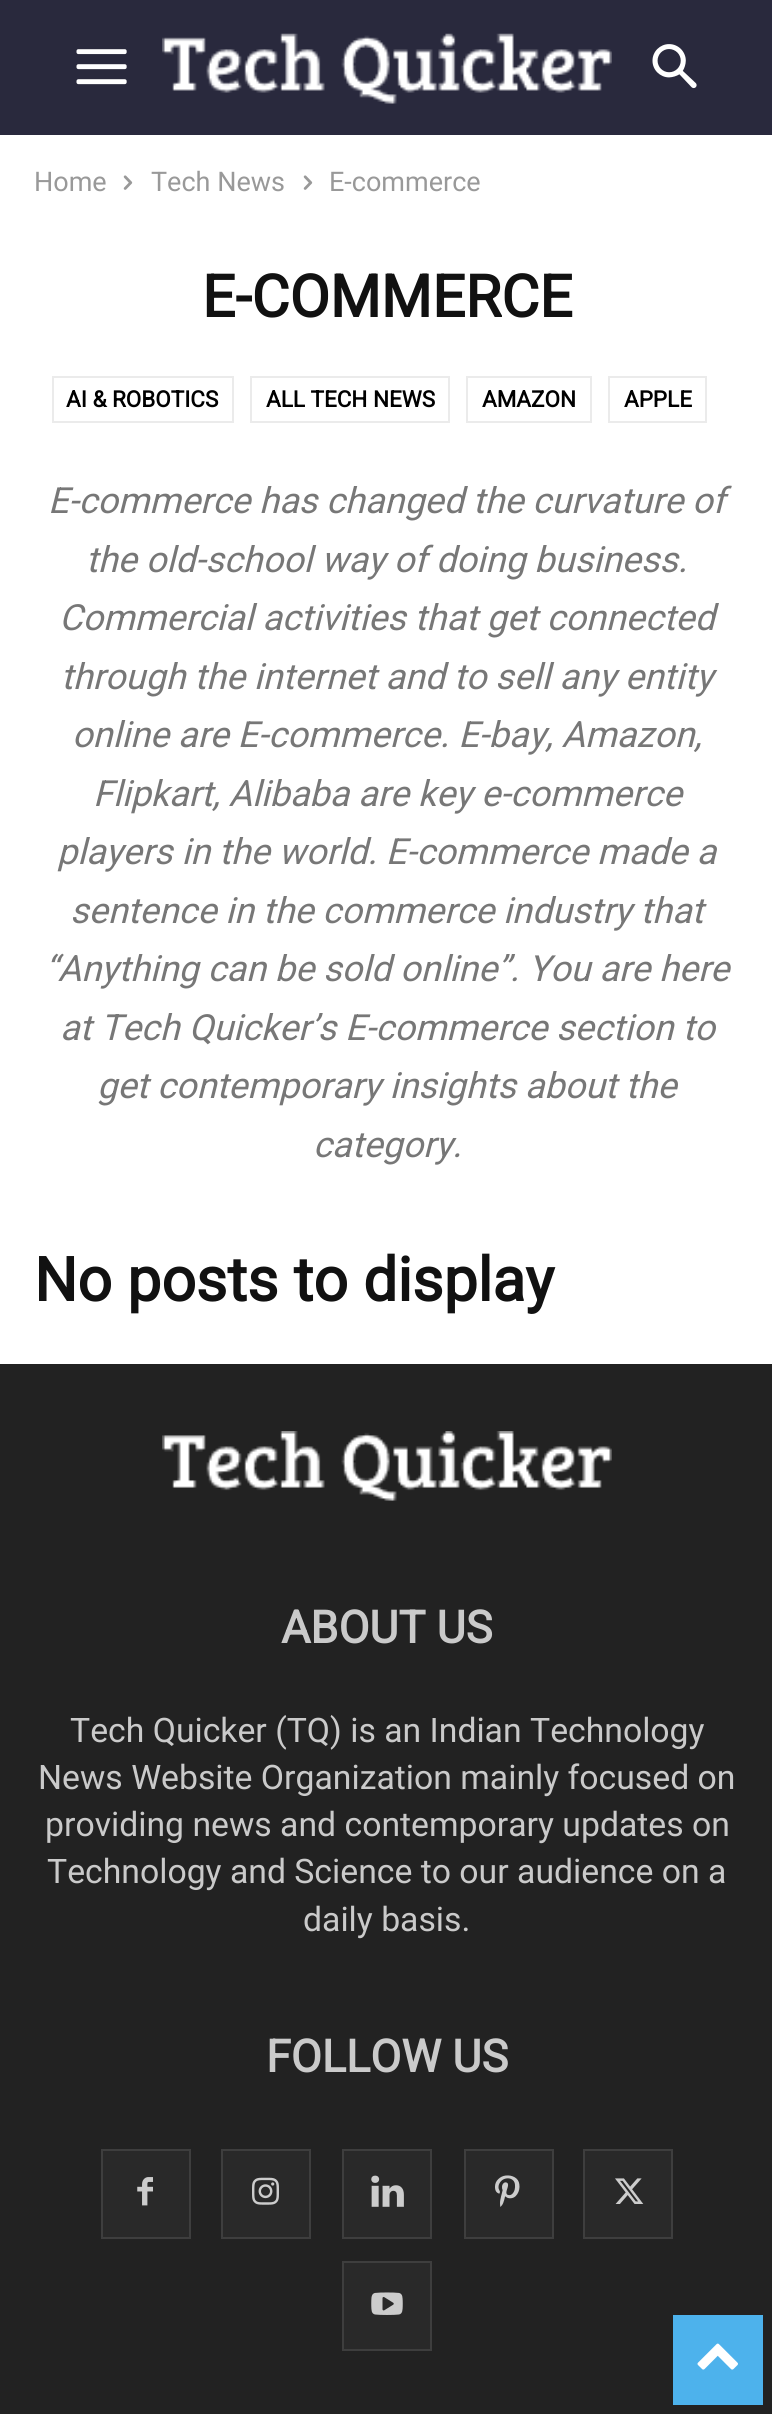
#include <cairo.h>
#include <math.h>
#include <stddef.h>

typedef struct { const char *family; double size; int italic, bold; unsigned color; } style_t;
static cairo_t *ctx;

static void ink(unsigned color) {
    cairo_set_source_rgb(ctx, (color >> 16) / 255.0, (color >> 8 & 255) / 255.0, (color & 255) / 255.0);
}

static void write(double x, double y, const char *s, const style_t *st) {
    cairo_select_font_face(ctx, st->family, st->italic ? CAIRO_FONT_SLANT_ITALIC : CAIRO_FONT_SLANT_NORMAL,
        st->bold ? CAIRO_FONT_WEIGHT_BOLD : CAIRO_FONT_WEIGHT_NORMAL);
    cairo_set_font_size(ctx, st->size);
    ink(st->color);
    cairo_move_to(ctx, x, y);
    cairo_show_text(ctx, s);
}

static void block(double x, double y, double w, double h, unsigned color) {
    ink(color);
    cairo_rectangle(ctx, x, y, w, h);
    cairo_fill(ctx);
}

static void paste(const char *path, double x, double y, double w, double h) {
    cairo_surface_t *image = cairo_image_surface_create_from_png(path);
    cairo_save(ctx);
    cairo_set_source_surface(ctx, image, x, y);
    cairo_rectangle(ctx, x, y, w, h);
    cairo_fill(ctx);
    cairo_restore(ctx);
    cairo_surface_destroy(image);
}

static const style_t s1 = {"Roboto", 27, 0, 0, 0x999999};
static const style_t s2 = {"Roboto", 58.5, 0, 1, 0x111111};
static const style_t s3 = {"Roboto", 22.5, 0, 1, 0x000000};
static const style_t s4 = {"Roboto", 36, 1, 0, 0x777777};
static const style_t s5 = {"Roboto", 60.75, 0, 1, 0x111111};
static const style_t s6 = {"Roboto", 45, 0, 1, 0xcacaca};
static const style_t s7 = {"Roboto", 33.75, 0, 0, 0xcacaca};

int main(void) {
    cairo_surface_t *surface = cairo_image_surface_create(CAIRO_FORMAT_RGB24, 772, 2414);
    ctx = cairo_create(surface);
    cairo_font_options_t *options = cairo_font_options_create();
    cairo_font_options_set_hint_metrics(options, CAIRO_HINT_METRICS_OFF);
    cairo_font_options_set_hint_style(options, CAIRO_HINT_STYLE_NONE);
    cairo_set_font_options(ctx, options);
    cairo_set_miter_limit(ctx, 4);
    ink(0xffffff);
    cairo_paint(ctx);
    block(0, 0, 772, 135, 0x29293d);
    paste("pic1.png", 76, 49, 51, 36);
    paste("pic2.png", 162, 33, 450, 71);
    paste("pic3.png", 652, 44, 45, 45);
    write(34, 191, "Home", &s1);
    paste("pic4.png", 123, 175, 10, 15);
    write(151, 191, "Tech News", &s1);
    paste("pic4.png", 303, 175, 10, 15);
    write(329, 191, "E-commerce", &s1);
    write(202, 317, "E-COMMERCE", &s2);
    cairo_rectangle(ctx, 53, 377, 180, 45);
    ink(0xebebeb);
    cairo_stroke(ctx);
    write(66, 407, "AI & ROBOTICS", &s3);
    cairo_rectangle(ctx, 251, 377, 198, 45);
    ink(0xebebeb);
    cairo_stroke(ctx);
    write(266, 407, "ALL TECH NEWS", &s3);
    cairo_rectangle(ctx, 467, 377, 124, 45);
    ink(0xebebeb);
    cairo_stroke(ctx);
    write(482, 407, "AMAZON", &s3);
    cairo_rectangle(ctx, 609, 377, 97, 45);
    ink(0xebebeb);
    cairo_stroke(ctx);
    write(624, 407, "APPLE", &s3);
    write(48, 513, "E-commerce has changed the curvature of", &s4);
    write(86, 572, "the old-school way of doing business.", &s4);
    write(59, 630, "Commercial activities that get connected", &s4);
    write(61, 689, "through the internet and to sell any entity", &s4);
    write(72, 747, "online are E-commerce. E-bay, Amazon,", &s4);
    write(93, 806, "Flipkart, Alibaba are key e-commerce", &s4);
    write(57, 864, "players in the world. E-commerce made a", &s4);
    write(70, 923, "sentence in the commerce industry that", &s4);
    write(45, 981, "“Anything can be sold online”. You are here", &s4);
    write(60, 1040, "at Tech Quicker’s E-commerce section to", &s4);
    write(97, 1098, "get contemporary insights about the", &s4);
    write(313, 1157, "category.", &s4);
    write(34, 1301, "No posts to display", &s5);
    block(0, 1364, 772, 1050, 0x222222);
    paste("pic5.png", 162, 1431, 450, 70);
    write(281, 1643, "ABOUT US", &s6);
    write(70, 1742, "Tech Quicker (TQ) is an Indian Technology", &s7);
    write(38, 1789, "News Website Organization mainly focused on", &s7);
    write(45, 1836, "providing news and contemporary updates on", &s7);
    write(47, 1883, "Technology and Science to our audience on a", &s7);
    write(303, 1931, "daily basis.", &s7);
    write(266, 2072, "FOLLOW US", &s6);
    ink(0x292929);
    cairo_rectangle(ctx, 102, 2150, 88, 88);
    cairo_fill_preserve(ctx);
    ink(0x3e3e3e);
    cairo_stroke(ctx);
    paste("pic6.png", 137, 2177, 16, 29);
    ink(0x292929);
    cairo_rectangle(ctx, 222, 2150, 88, 88);
    cairo_fill_preserve(ctx);
    ink(0x3e3e3e);
    cairo_stroke(ctx);
    paste("pic7.png", 252, 2177, 27, 28);
    ink(0x292929);
    cairo_rectangle(ctx, 343, 2150, 88, 88);
    cairo_fill_preserve(ctx);
    ink(0x3e3e3e);
    cairo_stroke(ctx);
    paste("pic8.png", 371, 2175, 33, 32);
    ink(0x292929);
    cairo_rectangle(ctx, 465, 2150, 88, 88);
    cairo_fill_preserve(ctx);
    ink(0x3e3e3e);
    cairo_stroke(ctx);
    paste("pic9.png", 495, 2175, 25, 32);
    ink(0x292929);
    cairo_rectangle(ctx, 584, 2150, 88, 88);
    cairo_fill_preserve(ctx);
    ink(0x3e3e3e);
    cairo_stroke(ctx);
    paste("pic10.png", 615, 2178, 29, 26);
    ink(0x292929);
    cairo_rectangle(ctx, 343, 2262, 88, 88);
    cairo_fill_preserve(ctx);
    ink(0x3e3e3e);
    cairo_stroke(ctx);
    paste("pic11.png", 371, 2292, 32, 23);
    block(673, 2315, 90, 90, 0x4db2ec);
    paste("pic12.png", 697, 2343, 41, 27);
    cairo_surface_write_to_png(surface, "screenshot.png");
    cairo_font_options_destroy(options);
    cairo_destroy(ctx);
    cairo_surface_destroy(surface);
    return 0;
}
